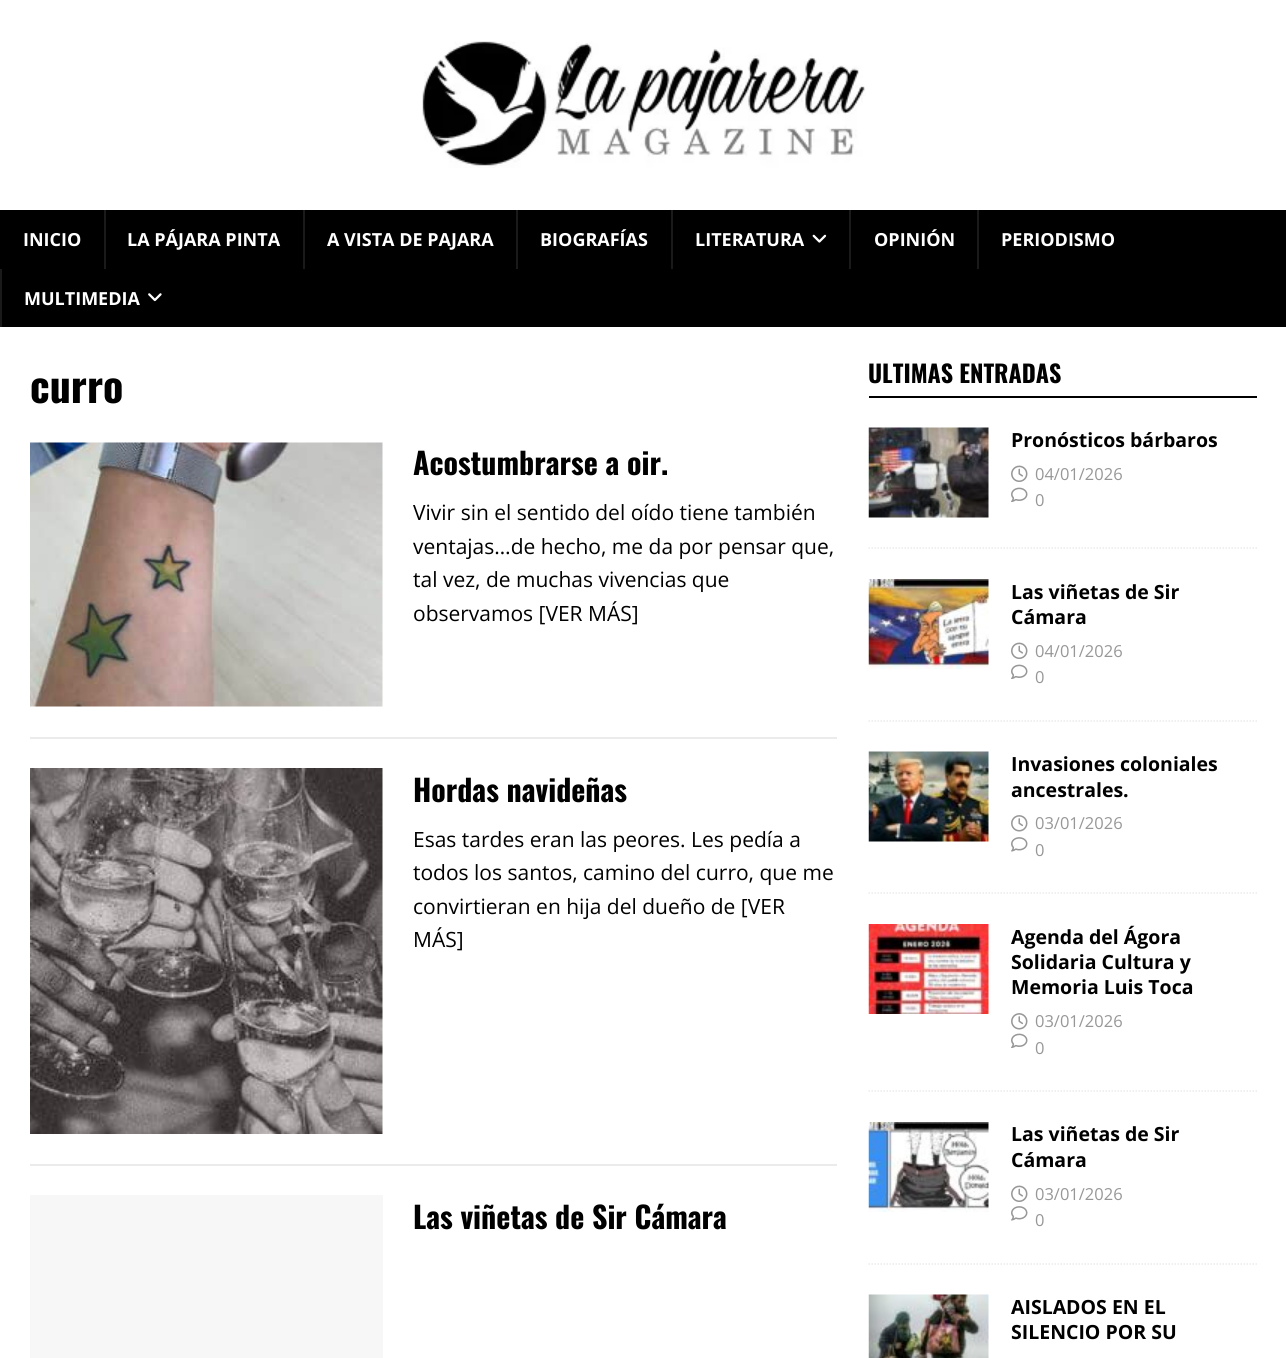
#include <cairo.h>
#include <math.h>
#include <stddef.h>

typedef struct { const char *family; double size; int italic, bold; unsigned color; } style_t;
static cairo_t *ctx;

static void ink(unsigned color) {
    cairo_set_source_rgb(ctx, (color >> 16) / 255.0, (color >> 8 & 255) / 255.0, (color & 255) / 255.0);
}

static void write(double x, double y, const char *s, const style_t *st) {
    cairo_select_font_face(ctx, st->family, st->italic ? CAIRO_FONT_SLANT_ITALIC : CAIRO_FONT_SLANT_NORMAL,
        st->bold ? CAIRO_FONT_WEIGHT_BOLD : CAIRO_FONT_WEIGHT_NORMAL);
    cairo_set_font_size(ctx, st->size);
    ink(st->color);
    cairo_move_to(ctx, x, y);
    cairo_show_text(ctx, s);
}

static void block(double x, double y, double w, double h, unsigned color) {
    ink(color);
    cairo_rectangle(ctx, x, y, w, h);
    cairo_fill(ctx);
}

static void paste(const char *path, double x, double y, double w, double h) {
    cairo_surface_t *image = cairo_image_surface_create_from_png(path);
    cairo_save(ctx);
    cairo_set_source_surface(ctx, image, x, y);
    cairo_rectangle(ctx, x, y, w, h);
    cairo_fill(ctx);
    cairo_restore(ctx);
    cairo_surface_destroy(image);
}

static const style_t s1 = {"Open Sans", 18, 0, 1, 0xffffff};
static const style_t s2 = {"Oswald", 42, 0, 1, 0x000000};
static const style_t s3 = {"Oswald", 30, 0, 1, 0x000000};
static const style_t s4 = {"Open Sans", 21, 0, 0, 0x000000};
static const style_t s5 = {"Oswald", 24, 0, 1, 0x000000};
static const style_t s6 = {"Open Sans", 19.5, 0, 1, 0x000000};
static const style_t s7 = {"Open Sans", 16.5, 0, 0, 0x979797};

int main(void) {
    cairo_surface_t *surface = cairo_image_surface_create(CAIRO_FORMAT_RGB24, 1286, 1358);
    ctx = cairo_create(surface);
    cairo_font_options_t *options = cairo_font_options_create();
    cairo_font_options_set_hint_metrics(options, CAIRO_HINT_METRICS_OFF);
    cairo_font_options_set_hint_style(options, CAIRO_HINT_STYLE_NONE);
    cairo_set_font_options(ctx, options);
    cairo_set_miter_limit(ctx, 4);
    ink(0xffffff);
    cairo_paint(ctx);
    paste("pic1.png", 422, 41, 444, 127);
    block(0, 210, 1286, 117, 0x000000);
    write(23, 246, "INICIO", &s1);
    block(104, 210, 2, 59, 0x1a1a1a);
    write(127, 246, "LA PÁJARA PINTA", &s1);
    block(303, 210, 2, 59, 0x1a1a1a);
    write(327, 246, "A VISTA DE PAJARA", &s1);
    block(516, 210, 2, 59, 0x1a1a1a);
    write(540, 246, "BIOGRAFÍAS", &s1);
    block(671, 210, 2, 59, 0x1a1a1a);
    write(695, 246, "LITERATURA", &s1);
    paste("pic2.png", 812, 234, 15, 9);
    block(849, 210, 2, 59, 0x1a1a1a);
    write(874, 246, "OPINIÓN", &s1);
    block(977, 210, 2, 59, 0x1a1a1a);
    write(1001, 246, "PERIODISMO", &s1);
    block(0, 269, 2, 58, 0x1a1a1a);
    write(24, 305, "MULTIMEDIA", &s1);
    paste("pic3.png", 148, 293, 14, 9);
    write(30, 403, "curro", &s2);
    block(30, 737, 807, 2, 0xebebeb);
    paste("pic4.png", 30, 442, 353, 265);
    write(413, 475, "Acostumbrarse a oir.", &s3);
    write(413, 520, "Vivir sin el sentido del oído tiene también", &s4);
    write(413, 554, "ventajas…de hecho, me da por pensar que,", &s4);
    write(413, 587, "tal vez, de muchas vivencias que", &s4);
    write(413, 621, "observamos [VER MÁS]", &s4);
    block(30, 1164, 807, 2, 0xebebeb);
    paste("pic5.png", 30, 768, 353, 366);
    write(413, 802, "Hordas navideñas", &s3);
    write(413, 847, "Esas tardes eran las peores. Les pedía a", &s4);
    write(413, 880, "todos los santos, camino del curro, que me", &s4);
    write(413, 914, "convirtieran en hija del dueño de [VER", &s4);
    write(413, 947, "MÁS]", &s4);
    block(30, 1195, 353, 163, 0xf7f7f7);
    write(413, 1229, "Las viñetas de Sir Cámara", &s3);
    block(869, 396, 388, 2, 0x000000);
    write(868, 383, "ULTIMAS ENTRADAS", &s5);
    cairo_new_path(ctx);
    cairo_move_to(ctx, 868.5, 548);
    cairo_line_to(ctx, 1257, 548);
    ink(0xebebeb);
    cairo_set_line_width(ctx, 1.5);
    cairo_set_dash(ctx, (double[]){1.5, 1.5}, 2, 0);
    cairo_stroke(ctx);
    paste("pic6.png", 868, 427, 121, 91);
    write(1011, 447, "Pronósticos bárbaros", &s6);
    paste("pic7.png", 1011, 465, 17, 17);
    write(1035, 480, "04/01/2026", &s7);
    paste("pic8.png", 1011, 487, 17, 15);
    write(1035, 506, "0", &s7);
    cairo_new_path(ctx);
    cairo_move_to(ctx, 868.5, 721);
    cairo_line_to(ctx, 1257, 721);
    ink(0xebebeb);
    cairo_stroke(ctx);
    paste("pic9.png", 868, 579, 121, 90);
    write(1011, 599, "Las viñetas de Sir", &s6);
    write(1011, 624, "Cámara", &s6);
    paste("pic7.png", 1011, 642, 17, 17);
    write(1035, 657, "04/01/2026", &s7);
    paste("pic8.png", 1011, 664, 17, 15);
    write(1035, 683, "0", &s7);
    cairo_new_path(ctx);
    cairo_move_to(ctx, 868.5, 893);
    cairo_line_to(ctx, 1257, 893);
    ink(0xebebeb);
    cairo_stroke(ctx);
    paste("pic10.png", 868, 751, 121, 91);
    write(1011, 771, "Invasiones coloniales", &s6);
    write(1011, 797, "ancestrales.", &s6);
    paste("pic11.png", 1011, 815, 17, 17);
    write(1035, 829, "03/01/2026", &s7);
    paste("pic12.png", 1011, 837, 17, 15);
    write(1035, 856, "0", &s7);
    cairo_new_path(ctx);
    cairo_move_to(ctx, 868.5, 1091);
    cairo_line_to(ctx, 1257, 1091);
    ink(0xebebeb);
    cairo_stroke(ctx);
    paste("pic13.png", 868, 924, 121, 90);
    write(1011, 944, "Agenda del Ágora", &s6);
    write(1011, 969, "Solidaria Cultura y", &s6);
    write(1011, 994, "Memoria Luis Toca", &s6);
    paste("pic11.png", 1011, 1013, 17, 17);
    write(1035, 1027, "03/01/2026", &s7);
    paste("pic8.png", 1011, 1033, 17, 15);
    write(1035, 1054, "0", &s7);
    cairo_new_path(ctx);
    cairo_move_to(ctx, 868.5, 1264);
    cairo_line_to(ctx, 1257, 1264);
    ink(0xebebeb);
    cairo_stroke(ctx);
    paste("pic14.png", 868, 1122, 121, 90);
    write(1011, 1141, "Las viñetas de Sir", &s6);
    write(1011, 1167, "Cámara", &s6);
    paste("pic7.png", 1011, 1185, 17, 17);
    write(1035, 1200, "03/01/2026", &s7);
    paste("pic12.png", 1011, 1206, 17, 15);
    write(1035, 1226, "0", &s7);
    paste("pic15.png", 868, 1294, 121, 64);
    write(1011, 1314, "AISLADOS EN EL", &s6);
    write(1011, 1339, "SILENCIO POR SU", &s6);
    cairo_surface_write_to_png(surface, "screenshot.png");
    cairo_font_options_destroy(options);
    cairo_destroy(ctx);
    cairo_surface_destroy(surface);
    return 0;
}
